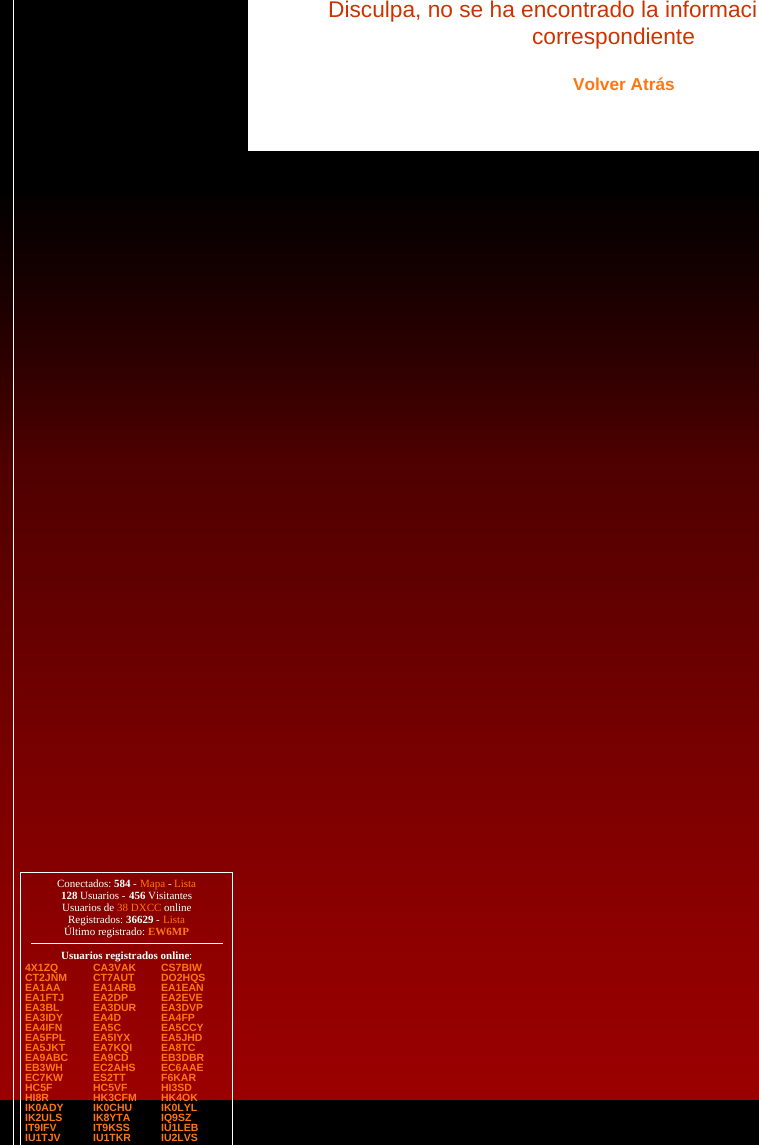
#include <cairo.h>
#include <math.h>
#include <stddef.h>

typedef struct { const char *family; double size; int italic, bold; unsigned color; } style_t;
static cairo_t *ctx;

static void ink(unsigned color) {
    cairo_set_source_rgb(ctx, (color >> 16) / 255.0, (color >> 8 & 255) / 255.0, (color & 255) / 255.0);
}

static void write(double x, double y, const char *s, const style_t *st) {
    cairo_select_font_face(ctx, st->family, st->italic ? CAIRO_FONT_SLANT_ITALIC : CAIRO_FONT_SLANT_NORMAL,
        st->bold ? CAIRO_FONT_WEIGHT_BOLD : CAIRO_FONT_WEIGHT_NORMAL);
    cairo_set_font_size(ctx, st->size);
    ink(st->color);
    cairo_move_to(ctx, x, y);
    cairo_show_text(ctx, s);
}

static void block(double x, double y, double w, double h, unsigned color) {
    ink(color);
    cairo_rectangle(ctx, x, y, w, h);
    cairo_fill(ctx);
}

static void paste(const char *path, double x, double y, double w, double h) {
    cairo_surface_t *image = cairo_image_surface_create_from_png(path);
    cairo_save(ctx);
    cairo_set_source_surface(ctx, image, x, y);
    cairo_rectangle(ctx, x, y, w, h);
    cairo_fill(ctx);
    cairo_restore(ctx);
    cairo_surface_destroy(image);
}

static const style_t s1 = {"Liberation Sans", 22.7, 0, 0, 0xcc3300};
static const style_t s2 = {"Liberation Sans", 17.25, 0, 1, 0xff7510};
static const style_t s3 = {"Liberation Serif", 11, 0, 0, 0xffffff};
static const style_t s4 = {"Liberation Serif", 11, 0, 1, 0xffffff};
static const style_t s5 = {"Liberation Serif", 11, 0, 0, 0xff7510};
static const style_t s6 = {"Liberation Serif", 11, 0, 1, 0xff7510};
static const style_t s7 = {"Liberation Sans", 10.5, 0, 1, 0xff7510};

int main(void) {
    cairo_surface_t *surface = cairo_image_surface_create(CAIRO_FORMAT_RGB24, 759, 1145);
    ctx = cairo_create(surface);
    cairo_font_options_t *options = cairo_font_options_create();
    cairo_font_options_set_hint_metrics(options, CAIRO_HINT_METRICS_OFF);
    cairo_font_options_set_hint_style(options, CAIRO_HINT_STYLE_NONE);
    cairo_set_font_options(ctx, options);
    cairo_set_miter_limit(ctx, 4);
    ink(0x000000);
    cairo_paint(ctx);
    paste("pic1.png", 0, 195, 759, 905);
    cairo_rectangle(ctx, 13.5, -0.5, 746, 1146);
    ink(0xffffff);
    cairo_set_line_width(ctx, 1);
    cairo_stroke(ctx);
    block(248, 0, 511, 151, 0xffffff);
    write(328, 17, "Disculpa, no se ha encontrado la informaci", &s1);
    write(532, 44, "correspondiente", &s1);
    write(573, 90, "Volver Atrás", &s2);
    cairo_rectangle(ctx, 20.5, 872.5, 212, 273);
    ink(0xffffff);
    cairo_stroke(ctx);
    write(57, 887, "Conectados:", &s3);
    write(114, 887, "584", &s4);
    write(133, 887, "-", &s3);
    write(140, 887, "Mapa", &s5);
    write(168, 887, "-", &s3);
    write(174, 887, "Lista", &s5);
    write(61, 899, "128", &s4);
    write(80, 899, "Usuarios -", &s3);
    write(129, 899, "456", &s4);
    write(148, 899, "Visitantes", &s3);
    write(62, 911, "Usuarios de", &s3);
    write(117, 911, "38 DXCC", &s5);
    write(164, 911, "online", &s3);
    write(68, 923, "Registrados:", &s3);
    write(126, 923, "36629", &s4);
    write(156, 923, "-", &s3);
    write(163, 923, "Lista", &s5);
    write(64, 935, "Último registrado:", &s3);
    write(148, 935, "EW6MP", &s6);
    block(31, 943, 192, 1, 0xffffff);
    write(61, 959, "Usuarios registrados online", &s4);
    write(189, 959, ":", &s3);
    write(25, 971, "4X1ZQ", &s7);
    write(93, 971, "CA3VAK", &s7);
    write(161, 971, "CS7BIW", &s7);
    write(25, 981, "CT2JNM", &s7);
    write(93, 981, "CT7AUT", &s7);
    write(161, 981, "DO2HQS", &s7);
    write(25, 991, "EA1AA", &s7);
    write(93, 991, "EA1ARB", &s7);
    write(161, 991, "EA1EAN", &s7);
    write(25, 1001, "EA1FTJ", &s7);
    write(93, 1001, "EA2DP", &s7);
    write(161, 1001, "EA2EVE", &s7);
    write(25, 1011, "EA3BL", &s7);
    write(93, 1011, "EA3DUR", &s7);
    write(161, 1011, "EA3DVP", &s7);
    write(25, 1021, "EA3IDY", &s7);
    write(93, 1021, "EA4D", &s7);
    write(161, 1021, "EA4FP", &s7);
    write(25, 1031, "EA4IFN", &s7);
    write(93, 1031, "EA5C", &s7);
    write(161, 1031, "EA5CCY", &s7);
    write(25, 1041, "EA5FPL", &s7);
    write(93, 1041, "EA5IYX", &s7);
    write(161, 1041, "EA5JHD", &s7);
    write(25, 1051, "EA5JKT", &s7);
    write(93, 1051, "EA7KQI", &s7);
    write(161, 1051, "EA8TC", &s7);
    write(25, 1061, "EA9ABC", &s7);
    write(93, 1061, "EA9CD", &s7);
    write(161, 1061, "EB3DBR", &s7);
    write(25, 1071, "EB3WH", &s7);
    write(93, 1071, "EC2AHS", &s7);
    write(161, 1071, "EC6AAE", &s7);
    write(25, 1081, "EC7KW", &s7);
    write(93, 1081, "ES2TT", &s7);
    write(161, 1081, "F6KAR", &s7);
    write(25, 1091, "HC5F", &s7);
    write(93, 1091, "HC5VF", &s7);
    write(161, 1091, "HI3SD", &s7);
    write(25, 1101, "HI8R", &s7);
    write(93, 1101, "HK3CFM", &s7);
    write(161, 1101, "HK4OK", &s7);
    write(25, 1111, "IK0ADY", &s7);
    write(93, 1111, "IK0CHU", &s7);
    write(161, 1111, "IK0LYL", &s7);
    write(25, 1121, "IK2ULS", &s7);
    write(93, 1121, "IK8YTA", &s7);
    write(161, 1121, "IQ9SZ", &s7);
    write(25, 1131, "IT9IFV", &s7);
    write(93, 1131, "IT9KSS", &s7);
    write(161, 1131, "IU1LEB", &s7);
    write(25, 1141, "IU1TJV", &s7);
    write(93, 1141, "IU1TKR", &s7);
    write(161, 1141, "IU2LVS", &s7);
    cairo_surface_write_to_png(surface, "screenshot.png");
    cairo_font_options_destroy(options);
    cairo_destroy(ctx);
    cairo_surface_destroy(surface);
    return 0;
}
